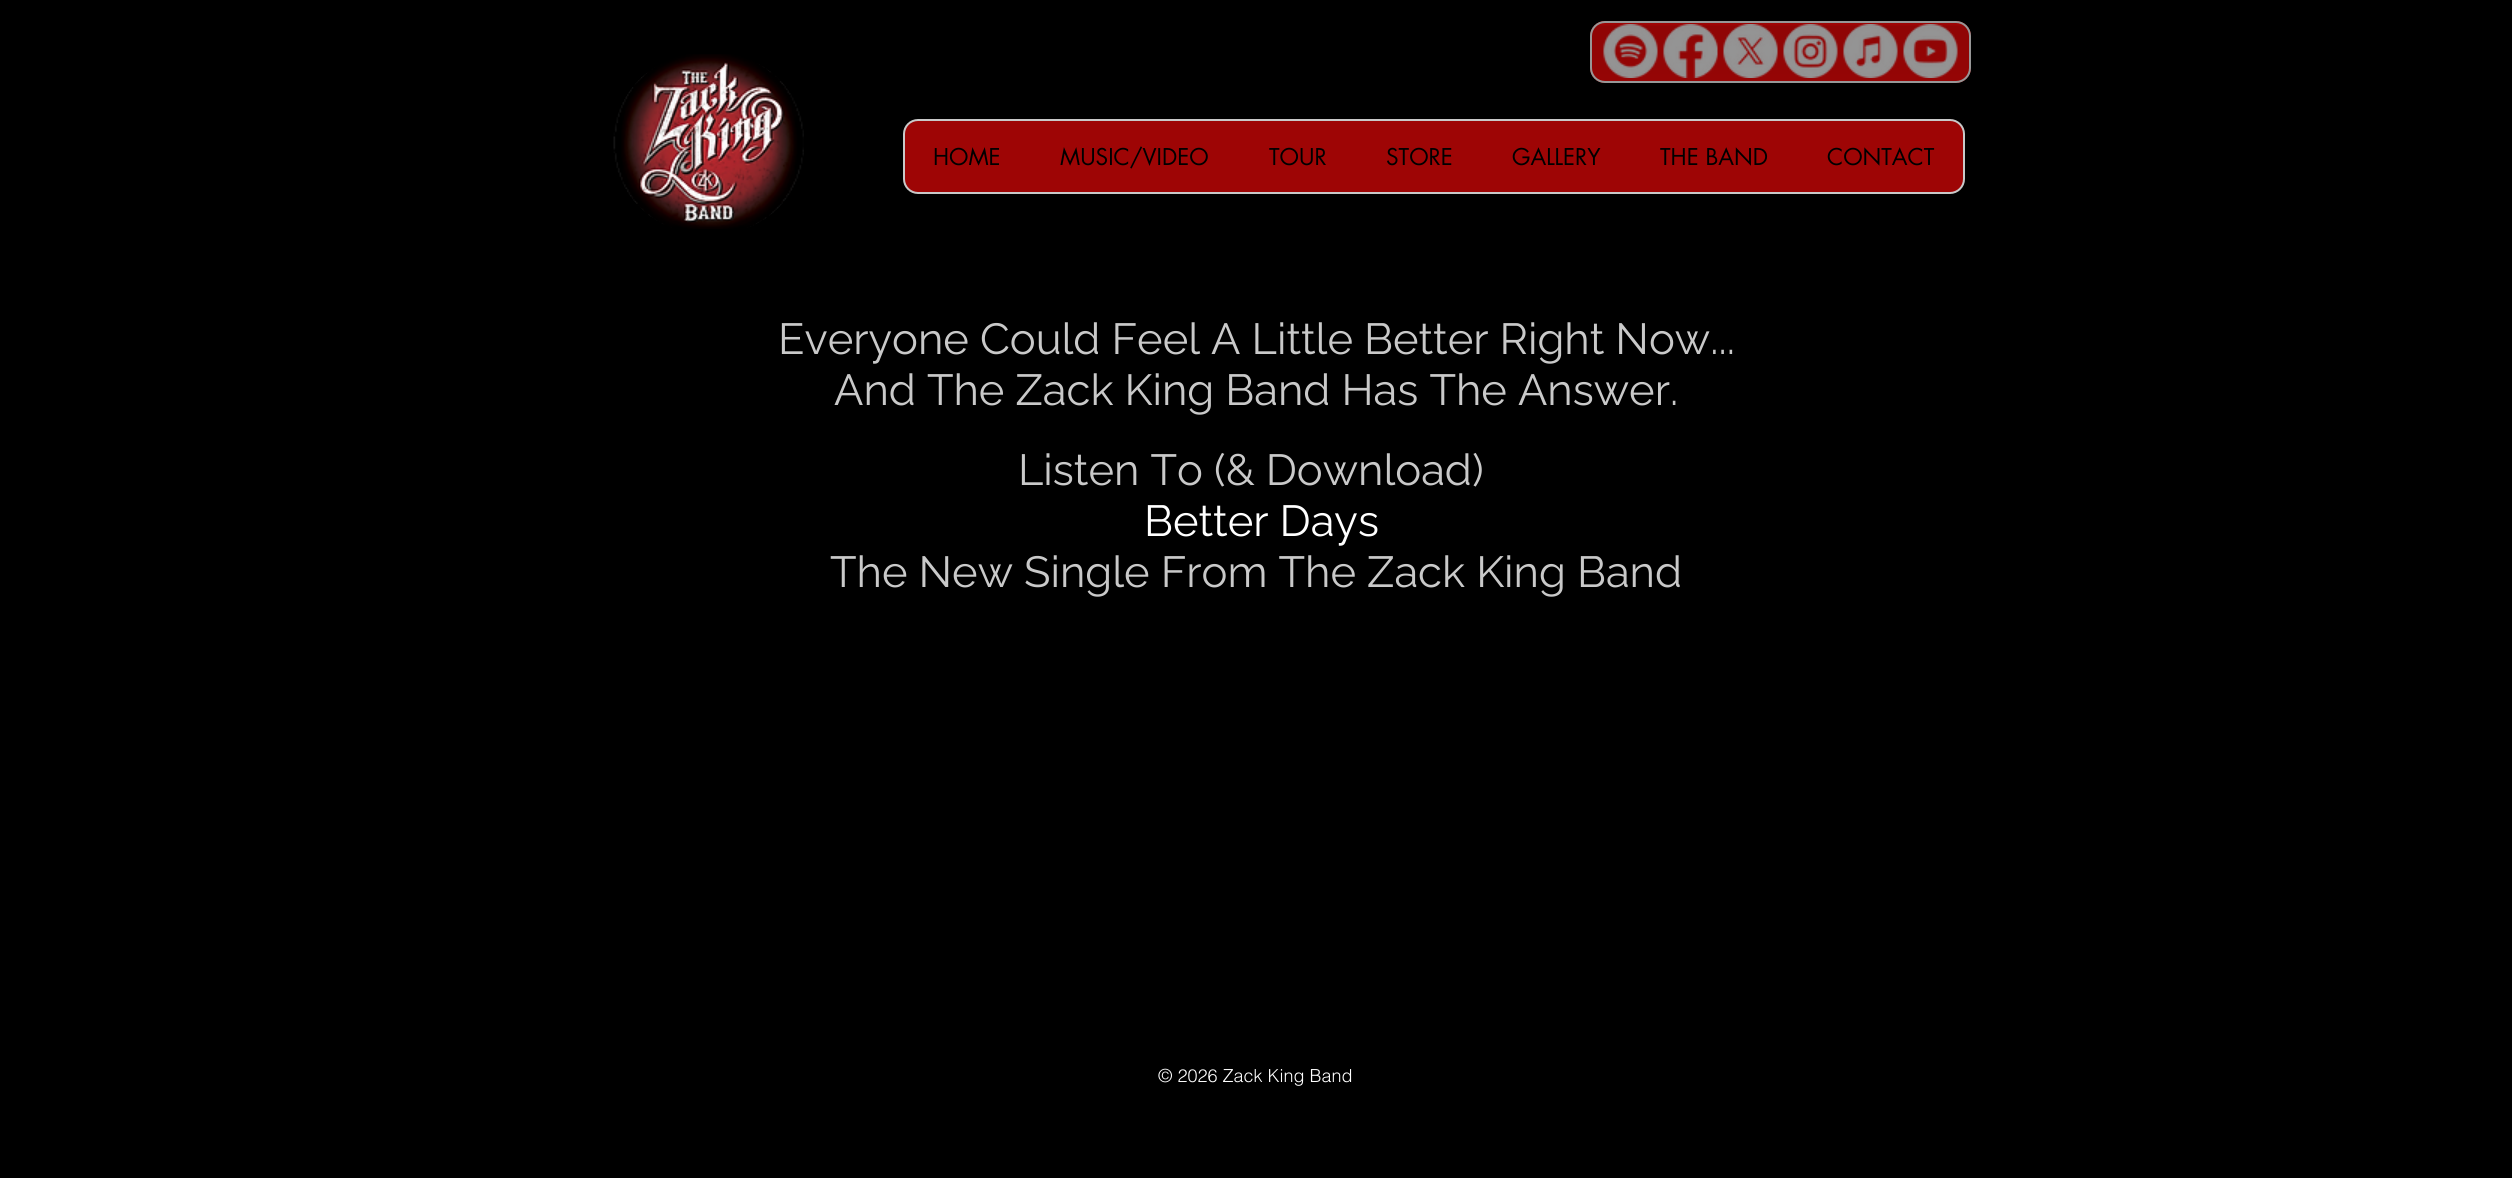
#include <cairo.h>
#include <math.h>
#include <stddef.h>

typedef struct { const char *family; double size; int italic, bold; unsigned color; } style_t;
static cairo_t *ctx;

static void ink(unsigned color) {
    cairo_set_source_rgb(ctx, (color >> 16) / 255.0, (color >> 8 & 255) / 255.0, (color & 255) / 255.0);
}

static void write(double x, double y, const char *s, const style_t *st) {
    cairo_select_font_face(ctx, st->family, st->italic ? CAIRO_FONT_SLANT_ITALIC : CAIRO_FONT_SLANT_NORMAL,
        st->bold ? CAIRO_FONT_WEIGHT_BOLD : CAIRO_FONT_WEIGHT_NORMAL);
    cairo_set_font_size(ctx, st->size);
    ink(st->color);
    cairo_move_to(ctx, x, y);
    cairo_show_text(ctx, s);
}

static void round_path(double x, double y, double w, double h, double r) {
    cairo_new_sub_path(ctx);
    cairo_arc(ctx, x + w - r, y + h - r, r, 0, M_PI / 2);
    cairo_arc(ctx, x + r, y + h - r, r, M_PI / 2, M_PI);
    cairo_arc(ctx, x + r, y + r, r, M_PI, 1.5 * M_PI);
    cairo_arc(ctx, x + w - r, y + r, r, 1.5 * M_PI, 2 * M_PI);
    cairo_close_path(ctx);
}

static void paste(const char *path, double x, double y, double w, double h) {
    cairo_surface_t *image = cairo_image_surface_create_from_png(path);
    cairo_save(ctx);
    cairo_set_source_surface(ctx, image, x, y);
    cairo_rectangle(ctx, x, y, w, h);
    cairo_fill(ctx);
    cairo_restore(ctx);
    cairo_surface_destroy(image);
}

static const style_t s1 = {"futura", 22.5, 0, 0, 0x000000};
static const style_t s2 = {"Raleway", 43.5, 0, 0, 0xc9c9c9};
static const style_t s3 = {"Raleway", 43.5, 0, 0, 0xffffff};
static const style_t s4 = {"helvetica Light", 18, 0, 0, 0xffffff};

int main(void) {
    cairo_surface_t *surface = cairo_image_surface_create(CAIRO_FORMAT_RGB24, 2512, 1178);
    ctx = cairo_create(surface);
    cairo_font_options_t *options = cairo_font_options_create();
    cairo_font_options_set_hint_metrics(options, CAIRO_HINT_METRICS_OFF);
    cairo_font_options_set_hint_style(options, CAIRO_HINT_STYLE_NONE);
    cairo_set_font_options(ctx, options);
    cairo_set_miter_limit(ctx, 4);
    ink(0x000000);
    cairo_paint(ctx);
    paste("pic1.png", 613, 54, 191, 175);
    ink(0x9e0505);
    round_path(1590, 21, 381, 62, 15);
    cairo_fill(ctx);
    paste("pic2.png", 1590, 25, 381, 56);
    round_path(1591, 22, 379, 60, 14);
    ink(0x979797);
    cairo_stroke(ctx);
    paste("pic3.png", 1603, 24, 55, 54);
    paste("pic4.png", 1663, 24, 55, 54);
    paste("pic5.png", 1723, 24, 55, 54);
    paste("pic6.png", 1783, 24, 55, 54);
    paste("pic7.png", 1843, 24, 55, 54);
    paste("pic8.png", 1903, 24, 55, 54);
    ink(0x9e0505);
    round_path(904, 120, 1060, 73, 14);
    cairo_fill_preserve(ctx);
    ink(0xc9c9c9);
    cairo_stroke(ctx);
    write(933, 165, "HOME", &s1);
    write(1060, 165, "MUSIC/VIDEO", &s1);
    write(1269, 165, "TOUR", &s1);
    write(1386, 165, "STORE", &s1);
    write(1512, 165, "GALLERY", &s1);
    write(1660, 165, "THE BAND", &s1);
    write(1827, 165, "CONTACT", &s1);
    write(778, 354, "Everyone Could Feel A Little Better Right Now...", &s2);
    write(834, 405, "And The Zack King Band Has The Answer.", &s2);
    write(1018, 485, "Listen To (& Download)", &s2);
    write(1144, 536, "Better Days", &s3);
    write(830, 587, "The New Single From The Zack King Band", &s2);
    write(1158, 1082, "© 2026 Zack King Band", &s4);
    cairo_surface_write_to_png(surface, "screenshot.png");
    cairo_font_options_destroy(options);
    cairo_destroy(ctx);
    cairo_surface_destroy(surface);
    return 0;
}
